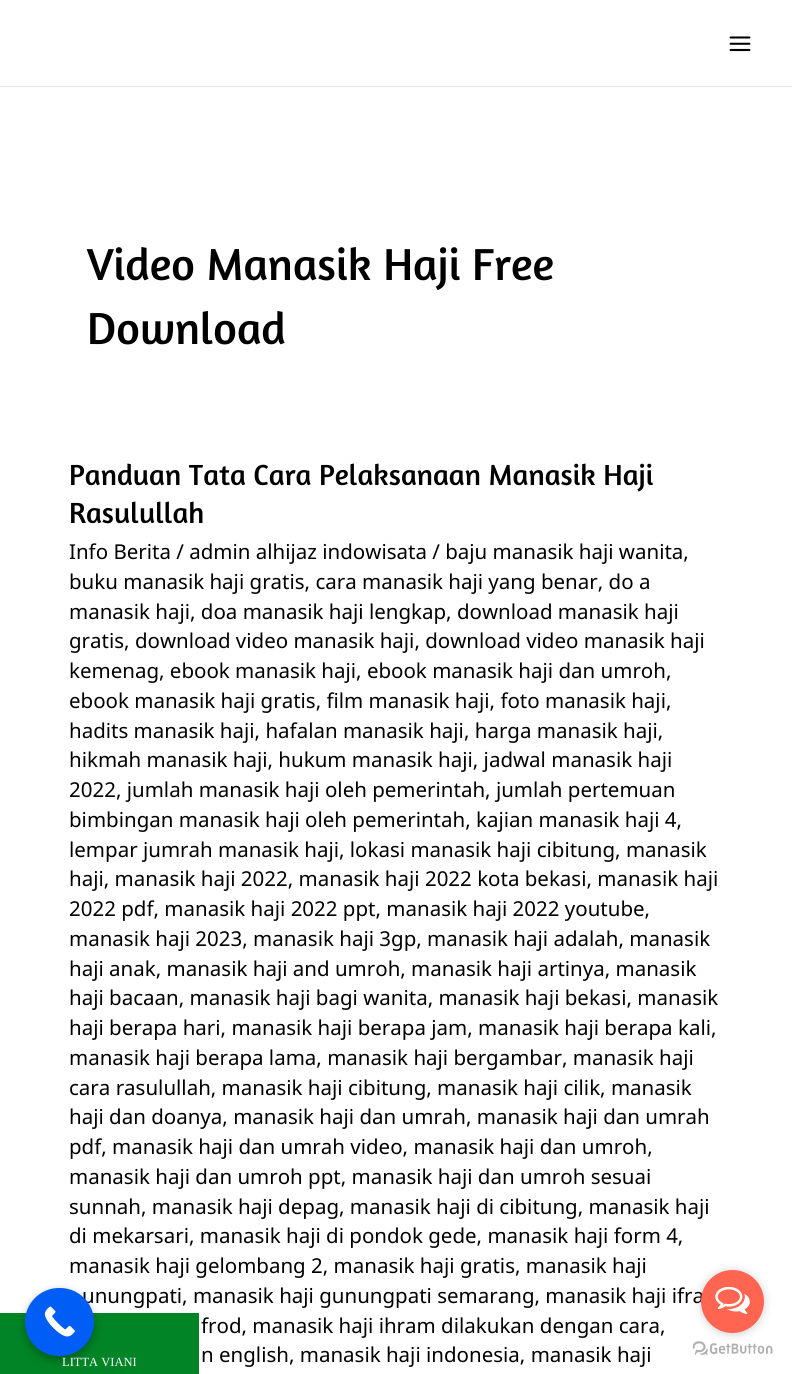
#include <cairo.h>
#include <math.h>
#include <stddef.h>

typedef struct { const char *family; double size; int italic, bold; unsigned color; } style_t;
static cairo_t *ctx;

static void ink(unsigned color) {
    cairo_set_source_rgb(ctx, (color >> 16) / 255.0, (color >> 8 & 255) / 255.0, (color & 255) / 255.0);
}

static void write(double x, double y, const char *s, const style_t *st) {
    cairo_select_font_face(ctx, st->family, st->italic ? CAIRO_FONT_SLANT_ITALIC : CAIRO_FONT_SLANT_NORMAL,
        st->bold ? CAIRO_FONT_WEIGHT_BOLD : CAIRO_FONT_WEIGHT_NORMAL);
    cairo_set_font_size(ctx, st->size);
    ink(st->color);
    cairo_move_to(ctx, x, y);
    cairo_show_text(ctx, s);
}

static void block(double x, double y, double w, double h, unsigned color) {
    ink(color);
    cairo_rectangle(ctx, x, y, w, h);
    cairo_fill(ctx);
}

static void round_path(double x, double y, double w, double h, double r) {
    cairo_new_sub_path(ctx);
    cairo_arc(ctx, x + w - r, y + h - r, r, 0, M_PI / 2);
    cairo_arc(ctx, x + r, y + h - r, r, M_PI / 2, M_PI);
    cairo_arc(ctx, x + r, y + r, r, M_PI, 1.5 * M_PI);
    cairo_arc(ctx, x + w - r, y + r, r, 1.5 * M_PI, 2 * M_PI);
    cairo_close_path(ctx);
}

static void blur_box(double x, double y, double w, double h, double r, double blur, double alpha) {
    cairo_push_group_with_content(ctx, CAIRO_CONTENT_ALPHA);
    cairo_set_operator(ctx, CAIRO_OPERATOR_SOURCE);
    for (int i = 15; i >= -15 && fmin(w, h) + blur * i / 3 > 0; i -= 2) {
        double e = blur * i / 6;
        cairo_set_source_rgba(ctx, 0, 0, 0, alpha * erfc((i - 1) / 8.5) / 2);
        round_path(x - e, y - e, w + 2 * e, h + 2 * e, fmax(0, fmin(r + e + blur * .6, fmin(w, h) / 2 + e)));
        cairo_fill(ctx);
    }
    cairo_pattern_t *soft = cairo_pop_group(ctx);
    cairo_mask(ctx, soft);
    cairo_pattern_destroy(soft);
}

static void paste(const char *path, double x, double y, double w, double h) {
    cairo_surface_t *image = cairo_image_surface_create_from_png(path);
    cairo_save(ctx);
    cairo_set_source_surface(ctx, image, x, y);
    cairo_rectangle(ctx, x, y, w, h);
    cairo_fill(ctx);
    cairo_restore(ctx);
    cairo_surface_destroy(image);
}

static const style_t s1 = {"Noto Sans Khudawadi", 20.5, 0, 0, 0x000000};
static const style_t s2 = {"Amaranth", 45.6, 0, 0, 0x000000};
static const style_t s3 = {"Amaranth", 29.6, 0, 0, 0x000000};
static const style_t s4 = {"Liberation Serif", 12.5, 0, 0, 0xffffff};

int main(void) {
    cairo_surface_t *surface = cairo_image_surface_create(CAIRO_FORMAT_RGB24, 792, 1374);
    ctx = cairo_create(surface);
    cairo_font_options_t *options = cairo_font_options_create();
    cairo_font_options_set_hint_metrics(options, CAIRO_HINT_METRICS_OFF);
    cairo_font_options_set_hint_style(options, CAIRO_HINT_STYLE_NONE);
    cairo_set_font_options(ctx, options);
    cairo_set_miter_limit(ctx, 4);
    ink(0xffffff);
    cairo_paint(ctx);
    block(0, 1313, 199, 61, 0x008425);
    ink(0x000000);
    blur_box(25, 1291, 69, 69, 34.5, 4, 0.3);
    write(82, 1303, "unungpati, manasik haji gunungpati semarang, manasik haji ifra", &s1);
    ink(0x005ef7);
    round_path(25, 1288, 69, 68, 34);
    cairo_fill(ctx);
    paste("pic1.png", 44, 1306, 31, 31);
    block(0, 86, 792, 1, 0xe5e5e5);
    paste("pic2.png", 729, 36, 22, 16);
    write(87, 280, "Video Manasik Haji Free", &s2);
    write(87, 344, "Download", &s2);
    write(69, 485, "Panduan Tata Cara Pelaksanaan Manasik Haji", &s3);
    write(69, 523, "Rasulullah", &s3);
    write(69, 559, "Info Berita / admin alhijaz indowisata / baju manasik haji wanita,", &s1);
    write(69, 589, "buku manasik haji gratis, cara manasik haji yang benar, do a", &s1);
    write(69, 619, "manasik haji, doa manasik haji lengkap, download manasik haji", &s1);
    write(69, 648, "gratis, download video manasik haji, download video manasik haji", &s1);
    write(69, 678, "kemenag, ebook manasik haji, ebook manasik haji dan umroh,", &s1);
    write(69, 708, "ebook manasik haji gratis, film manasik haji, foto manasik haji,", &s1);
    write(69, 738, "hadits manasik haji, hafalan manasik haji, harga manasik haji,", &s1);
    write(69, 767, "hikmah manasik haji, hukum manasik haji, jadwal manasik haji", &s1);
    write(69, 797, "2022, jumlah manasik haji oleh pemerintah, jumlah pertemuan", &s1);
    write(69, 827, "bimbingan manasik haji oleh pemerintah, kajian manasik haji 4,", &s1);
    write(69, 857, "lempar jumrah manasik haji, lokasi manasik haji cibitung, manasik", &s1);
    write(69, 886, "haji, manasik haji 2022, manasik haji 2022 kota bekasi, manasik haji", &s1);
    write(69, 916, "2022 pdf, manasik haji 2022 ppt, manasik haji 2022 youtube,", &s1);
    write(69, 946, "manasik haji 2023, manasik haji 3gp, manasik haji adalah, manasik", &s1);
    write(69, 976, "haji anak, manasik haji and umroh, manasik haji artinya, manasik", &s1);
    write(69, 1005, "haji bacaan, manasik haji bagi wanita, manasik haji bekasi, manasik", &s1);
    write(69, 1035, "haji berapa hari, manasik haji berapa jam, manasik haji berapa kali,", &s1);
    write(69, 1065, "manasik haji berapa lama, manasik haji bergambar, manasik haji", &s1);
    write(69, 1095, "cara rasulullah, manasik haji cibitung, manasik haji cilik, manasik", &s1);
    write(69, 1124, "haji dan doanya, manasik haji dan umrah, manasik haji dan umrah", &s1);
    write(69, 1154, "pdf, manasik haji dan umrah video, manasik haji dan umroh,", &s1);
    write(69, 1184, "manasik haji dan umroh ppt, manasik haji dan umroh sesuai", &s1);
    write(69, 1214, "sunnah, manasik haji depag, manasik haji di cibitung, manasik haji", &s1);
    write(69, 1243, "di mekarsari, manasik haji di pondok gede, manasik haji form 4,", &s1);
    write(69, 1273, "manasik haji gelombang 2, manasik haji gratis, manasik haji", &s1);
    write(201, 1333, "frod, manasik haji ihram dilakukan dengan cara,", &s1);
    write(201, 1362, "n english, manasik haji indonesia, manasik haji", &s1);
    paste("pic4.png", 693, 1341, 80, 14);
    ink(0x888888);
    blur_box(701, 1271, 63, 63, 31.5, 4.5, 0.4);
    ink(0xff6550);
    cairo_arc(ctx, 732.5, 1301.5, 31.5, 0, 2 * M_PI);
    cairo_fill(ctx);
    paste("pic3.png", 715, 1286, 35, 28);
    write(62, 1366, "LITTA VIANI", &s4);
    cairo_surface_write_to_png(surface, "screenshot.png");
    cairo_font_options_destroy(options);
    cairo_destroy(ctx);
    cairo_surface_destroy(surface);
    return 0;
}
